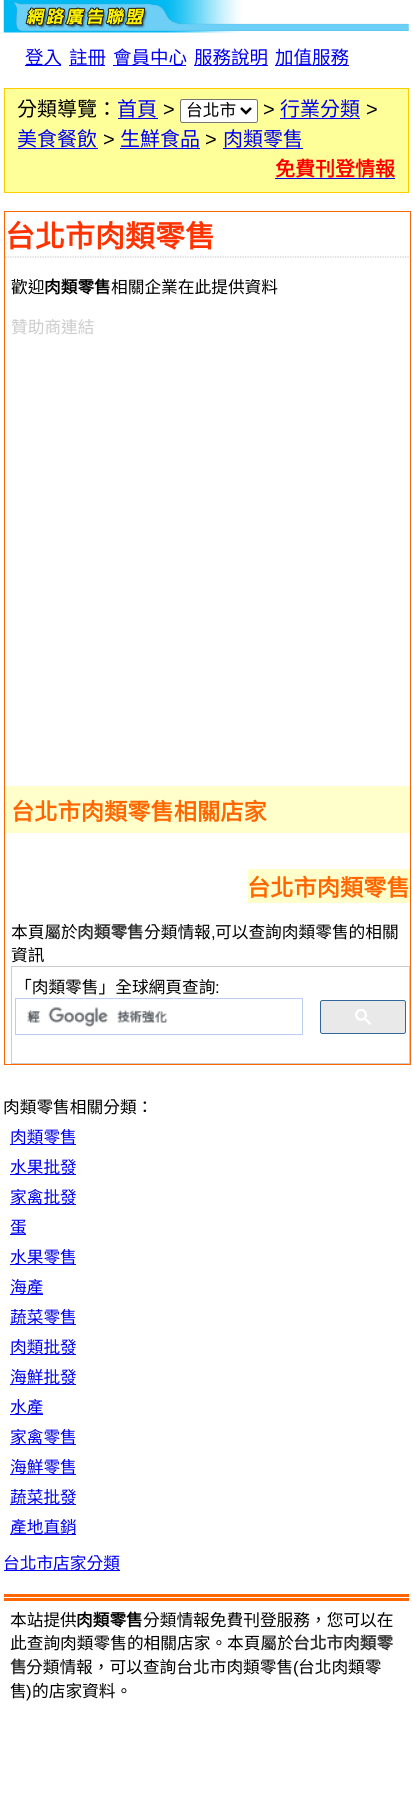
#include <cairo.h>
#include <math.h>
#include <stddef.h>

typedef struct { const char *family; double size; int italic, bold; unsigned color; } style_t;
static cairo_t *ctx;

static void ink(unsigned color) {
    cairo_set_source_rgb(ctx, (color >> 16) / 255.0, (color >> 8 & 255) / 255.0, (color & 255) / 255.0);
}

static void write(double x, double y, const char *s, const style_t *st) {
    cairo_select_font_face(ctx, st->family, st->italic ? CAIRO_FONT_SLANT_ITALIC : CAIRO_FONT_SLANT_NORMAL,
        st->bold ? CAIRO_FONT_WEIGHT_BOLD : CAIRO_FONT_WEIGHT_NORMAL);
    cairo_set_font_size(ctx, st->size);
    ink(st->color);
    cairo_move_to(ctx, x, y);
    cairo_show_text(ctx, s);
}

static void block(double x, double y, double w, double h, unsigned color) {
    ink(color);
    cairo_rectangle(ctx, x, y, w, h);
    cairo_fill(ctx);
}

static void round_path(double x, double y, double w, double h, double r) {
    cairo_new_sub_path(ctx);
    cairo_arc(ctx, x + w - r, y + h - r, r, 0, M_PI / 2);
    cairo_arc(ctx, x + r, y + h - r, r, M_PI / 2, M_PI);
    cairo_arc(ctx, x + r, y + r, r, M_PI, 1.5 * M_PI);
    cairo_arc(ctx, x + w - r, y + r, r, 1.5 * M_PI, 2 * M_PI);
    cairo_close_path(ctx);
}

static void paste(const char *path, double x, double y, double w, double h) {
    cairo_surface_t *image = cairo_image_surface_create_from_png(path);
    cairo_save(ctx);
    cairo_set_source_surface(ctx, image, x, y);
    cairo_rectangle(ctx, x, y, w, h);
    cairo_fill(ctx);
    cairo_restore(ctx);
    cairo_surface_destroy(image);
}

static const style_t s1 = {"Noto Sans CJK TC", 18.5, 0, 0, 0x0000ee};
static const style_t s2 = {"Noto Sans CJK TC", 20, 0, 0, 0x000000};
static const style_t s3 = {"Noto Sans CJK TC", 20, 0, 0, 0x0000ee};
static const style_t s4 = {"Liberation Sans", 20, 0, 0, 0x000000};
static const style_t s5 = {"Noto Sans CJK TC", 16.7, 0, 0, 0x000000};
static const style_t s6 = {"Noto Sans CJK TC", 20, 0, 1, 0xff0000};
static const style_t s7 = {"Noto Sans CJK TC", 30, 0, 1, 0xff3300};
static const style_t s8 = {"Noto Sans CJK TC", 16.7, 0, 1, 0x000000};
static const style_t s9 = {"Noto Sans CJK TC", 16.7, 0, 0, 0xcccccc};
static const style_t s10 = {"Noto Sans CJK TC", 23.25, 0, 1, 0xff6600};
static const style_t s11 = {"Noto Sans CJK TC", 16.7, 0, 1, 0x333333};
static const style_t s12 = {"Liberation Sans", 16.7, 0, 0, 0x000000};
static const style_t s13 = {"Noto Sans CJK TC", 16.7, 0, 0, 0x0000ee};

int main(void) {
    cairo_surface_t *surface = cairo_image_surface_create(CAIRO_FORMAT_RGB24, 412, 1816);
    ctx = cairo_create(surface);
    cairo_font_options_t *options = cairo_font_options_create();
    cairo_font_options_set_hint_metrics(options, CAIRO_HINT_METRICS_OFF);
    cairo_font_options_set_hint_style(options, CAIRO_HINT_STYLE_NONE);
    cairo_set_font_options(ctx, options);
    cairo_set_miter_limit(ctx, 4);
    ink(0xffffff);
    cairo_paint(ctx);
    paste("pic1.png", 3, 0, 406, 33);
    block(25, 65, 36, 1, 0x0000ee);
    write(25, 64, "登入", &s1);
    block(69, 65, 36, 1, 0x0000ee);
    write(69, 64, "註冊", &s1);
    block(113, 65, 73, 1, 0x0000ee);
    write(113, 64, "會員中心", &s1);
    block(194, 65, 74, 1, 0x0000ee);
    write(194, 64, "服務說明", &s1);
    block(275, 65, 74, 1, 0x0000ee);
    write(275, 64, "加值服務", &s1);
    ink(0xffff99);
    cairo_rectangle(ctx, 4.5, 88.5, 404, 104);
    cairo_fill_preserve(ctx);
    ink(0xffcc00);
    cairo_set_line_width(ctx, 1);
    cairo_stroke(ctx);
    write(17, 116, "分類導覽：", &s2);
    write(117, 116, "首頁", &s3);
    block(118, 118, 40, 1, 0x0000ee);
    write(163, 116, ">", &s4);
    ink(0xffffff);
    round_path(180.5, 99.5, 77, 23, 2);
    cairo_fill_preserve(ctx);
    ink(0x767676);
    cairo_stroke(ctx);
    cairo_new_path(ctx);
    cairo_move_to(ctx, 241, 108);
    cairo_line_to(ctx, 246, 113);
    cairo_line_to(ctx, 251, 108);
    ink(0x000000);
    cairo_set_line_width(ctx, 2.5);
    cairo_stroke(ctx);
    write(186, 116, "台北市", &s5);
    write(263, 116, ">", &s4);
    write(280, 116, "行業分類", &s3);
    block(280, 118, 80, 1, 0x0000ee);
    write(366, 116, ">", &s4);
    write(17, 146, "美食餐飲", &s3);
    block(18, 148, 80, 1, 0x0000ee);
    write(103, 146, ">", &s4);
    write(120, 146, "生鮮食品", &s3);
    block(120, 148, 80, 1, 0x0000ee);
    write(205, 146, ">", &s4);
    write(223, 146, "肉類零售", &s3);
    block(223, 148, 80, 1, 0x0000ee);
    write(275, 176, "免費刊登情報", &s6);
    block(275, 178, 120, 1, 0x0000ee);
    cairo_rectangle(ctx, 4.5, 211.5, 406, 853);
    ink(0xff6600);
    cairo_set_line_width(ctx, 1);
    cairo_stroke(ctx);
    cairo_new_path(ctx);
    cairo_move_to(ctx, 5, 257);
    cairo_line_to(ctx, 410, 257);
    ink(0xcccccc);
    cairo_set_line_width(ctx, 1.2);
    cairo_set_dash(ctx, (double[]){1.25, 1.25}, 2, 0);
    cairo_stroke(ctx);
    write(5, 247, "台北市肉類零售", &s7);
    write(11, 293, "歡迎", &s5);
    write(44, 293, "肉類零售", &s8);
    write(111, 293, "相關企業在此提供資料", &s5);
    write(11, 333, "贊助商連結", &s9);
    block(5, 786, 405, 47, 0xffffcc);
    write(11, 820, "台北市肉類零售相關店家", &s10);
    block(248, 869, 162, 34, 0xffffcc);
    write(247, 896, "台北市肉類零售", &s10);
    write(11, 938, "本頁屬於", &s5);
    write(77, 938, "肉類零售", &s11);
    write(144, 938, "分類情報", &s5);
    write(211, 938, ",", &s12);
    write(215, 938, "可以查詢肉類零售的相關", &s5);
    write(11, 961, "資訊", &s5);
    cairo_rectangle(ctx, 11.5, 966.5, 398, 97);
    ink(0xcccccc);
    cairo_set_line_width(ctx, 1);
    cairo_set_dash(ctx, NULL, 0, 0);
    cairo_stroke(ctx);
    write(15, 993, "「肉類零售」全球網頁查詢", &s5);
    write(215, 993, ":", &s12);
    cairo_rectangle(ctx, 15.5, 998.5, 287, 36);
    ink(0xbccdf0);
    cairo_stroke(ctx);
    paste("pic2.png", 27, 1007, 141, 20);
    ink(0xe9e9e9);
    round_path(320.5, 1000.5, 85, 33, 2);
    cairo_fill_preserve(ctx);
    ink(0x336699);
    cairo_stroke(ctx);
    paste("pic3.png", 355, 1009, 16, 16);
    write(3, 1113, "肉類零售相關分類：", &s5);
    block(10, 1144, 66, 1, 0x0000ee);
    write(10, 1143, "肉類零售", &s13);
    block(10, 1174, 66, 1, 0x0000ee);
    write(10, 1173, "水果批發", &s13);
    block(10, 1204, 66, 1, 0x0000ee);
    write(10, 1203, "家禽批發", &s13);
    block(10, 1234, 16, 1, 0x0000ee);
    write(10, 1233, "蛋", &s13);
    block(10, 1264, 66, 1, 0x0000ee);
    write(10, 1263, "水果零售", &s13);
    block(10, 1294, 33, 1, 0x0000ee);
    write(10, 1293, "海產", &s13);
    block(10, 1324, 66, 1, 0x0000ee);
    write(10, 1323, "蔬菜零售", &s13);
    block(10, 1354, 66, 1, 0x0000ee);
    write(10, 1353, "肉類批發", &s13);
    block(10, 1384, 66, 1, 0x0000ee);
    write(10, 1383, "海鮮批發", &s13);
    block(10, 1414, 33, 1, 0x0000ee);
    write(10, 1413, "水產", &s13);
    block(10, 1444, 66, 1, 0x0000ee);
    write(10, 1443, "家禽零售", &s13);
    block(10, 1474, 66, 1, 0x0000ee);
    write(10, 1473, "海鮮零售", &s13);
    block(10, 1504, 66, 1, 0x0000ee);
    write(10, 1503, "蔬菜批發", &s13);
    block(10, 1534, 66, 1, 0x0000ee);
    write(10, 1533, "產地直銷", &s13);
    block(4, 1570, 116, 1, 0x0000ee);
    write(3, 1569, "台北市店家分類", &s13);
    block(4, 1594, 405, 3, 0xff6600);
    block(4, 1598, 405, 3, 0xff6600);
    write(10, 1626, "本站提供", &s5);
    write(76, 1626, "肉類零售", &s8);
    write(143, 1626, "分類情報免費刊登服務，您可以在", &s5);
    write(10, 1649, "此查詢肉類零售的相關店家。本頁屬於", &s5);
    write(293, 1649, "台北市肉類零", &s11);
    write(10, 1673, "售", &s11);
    write(26, 1673, "分類情報，可以查詢台北市肉類零售", &s5);
    write(293, 1673, "(", &s12);
    write(298, 1673, "台北肉類零", &s5);
    write(10, 1697, "售", &s5);
    write(26, 1697, ")", &s12);
    write(32, 1697, "的店家資料。", &s5);
    cairo_surface_write_to_png(surface, "screenshot.png");
    cairo_font_options_destroy(options);
    cairo_destroy(ctx);
    cairo_surface_destroy(surface);
    return 0;
}
